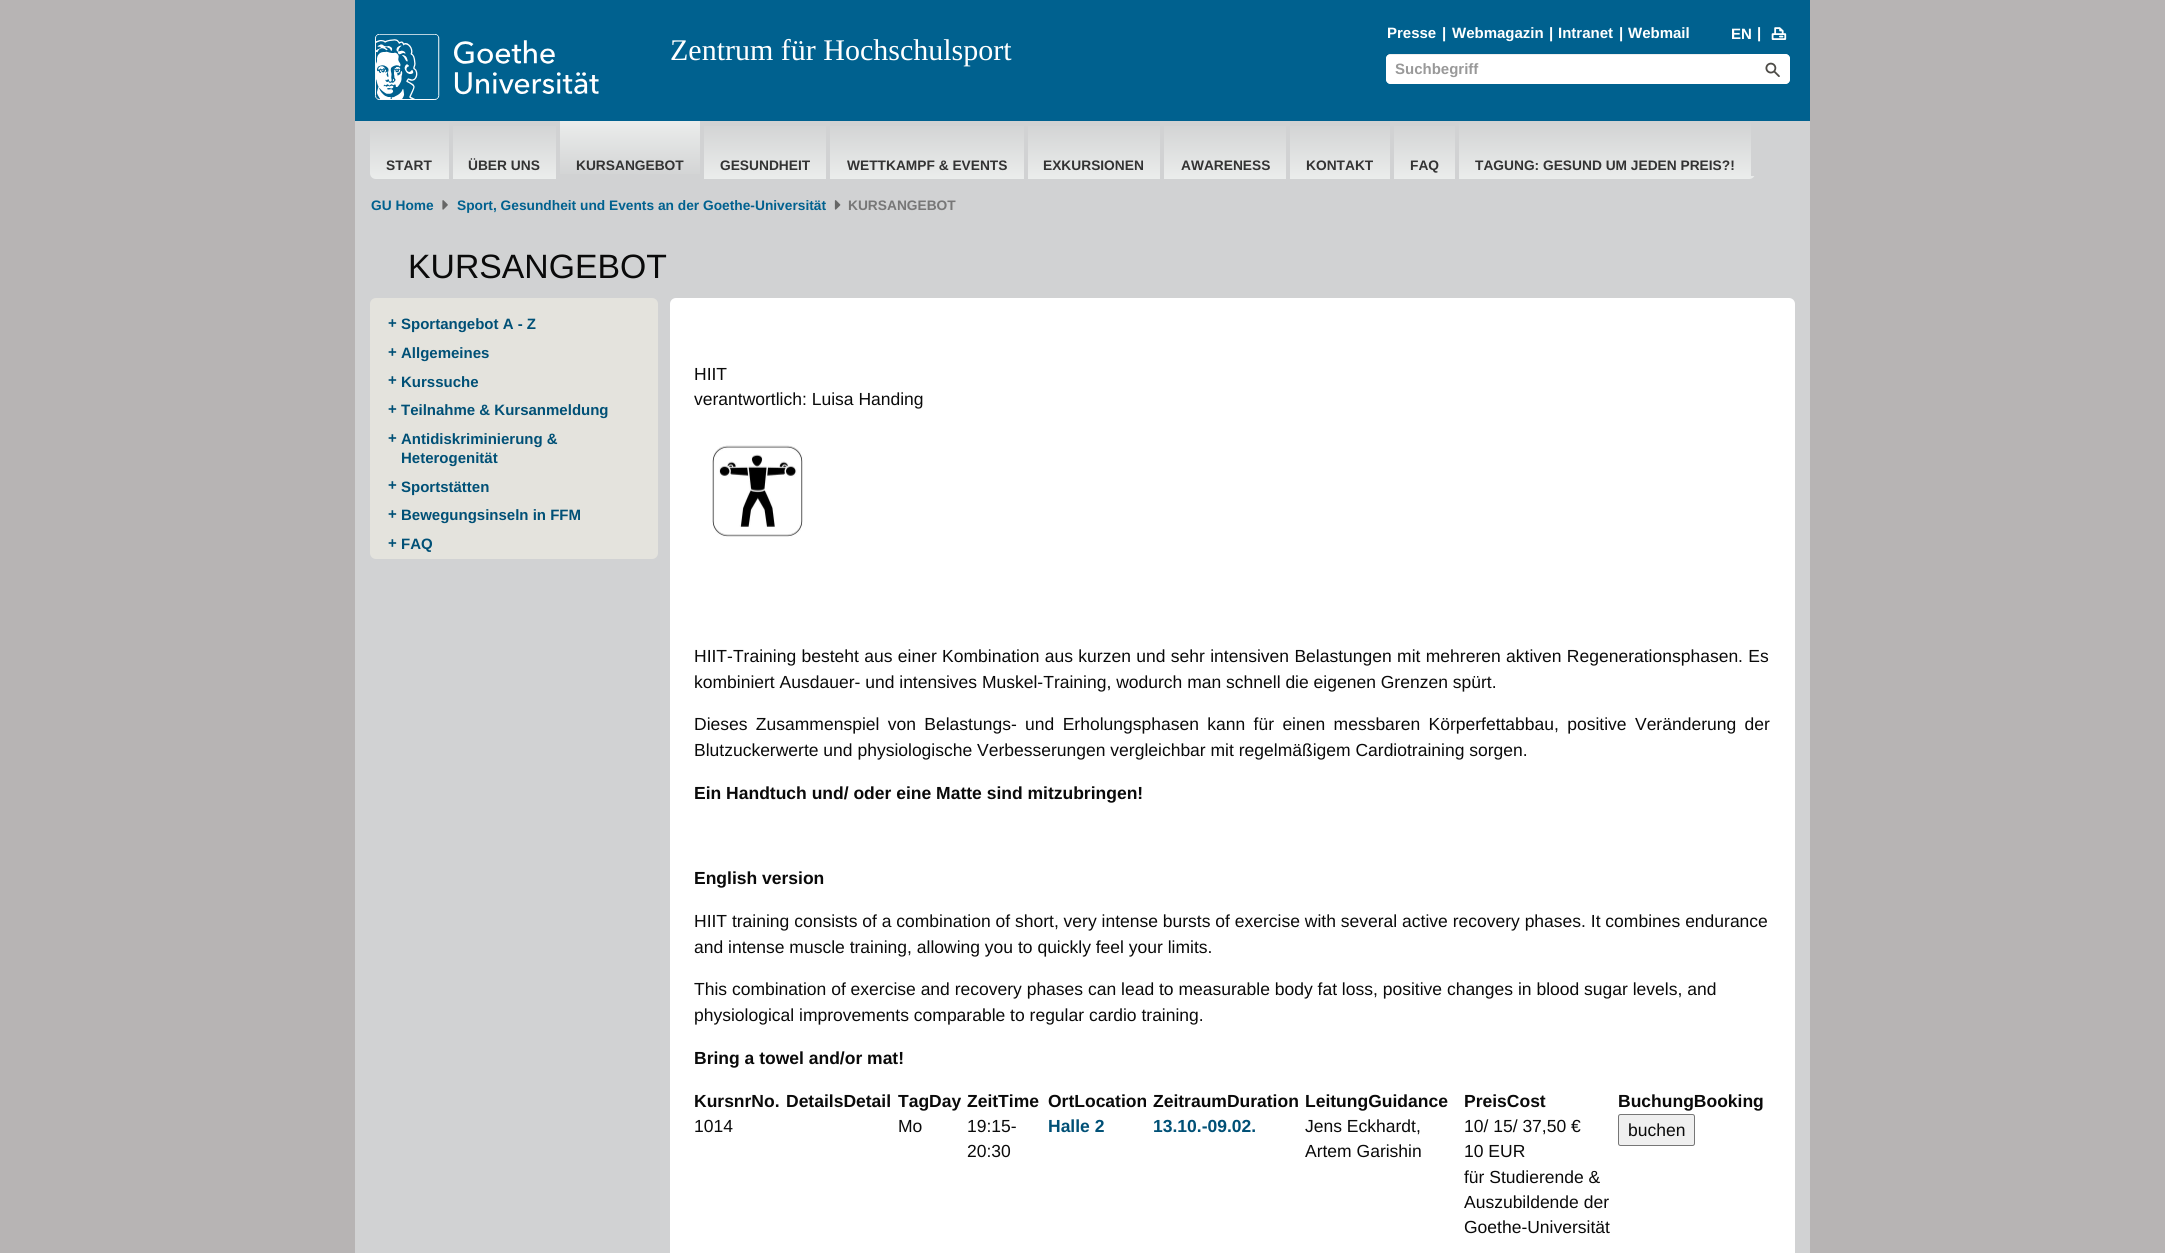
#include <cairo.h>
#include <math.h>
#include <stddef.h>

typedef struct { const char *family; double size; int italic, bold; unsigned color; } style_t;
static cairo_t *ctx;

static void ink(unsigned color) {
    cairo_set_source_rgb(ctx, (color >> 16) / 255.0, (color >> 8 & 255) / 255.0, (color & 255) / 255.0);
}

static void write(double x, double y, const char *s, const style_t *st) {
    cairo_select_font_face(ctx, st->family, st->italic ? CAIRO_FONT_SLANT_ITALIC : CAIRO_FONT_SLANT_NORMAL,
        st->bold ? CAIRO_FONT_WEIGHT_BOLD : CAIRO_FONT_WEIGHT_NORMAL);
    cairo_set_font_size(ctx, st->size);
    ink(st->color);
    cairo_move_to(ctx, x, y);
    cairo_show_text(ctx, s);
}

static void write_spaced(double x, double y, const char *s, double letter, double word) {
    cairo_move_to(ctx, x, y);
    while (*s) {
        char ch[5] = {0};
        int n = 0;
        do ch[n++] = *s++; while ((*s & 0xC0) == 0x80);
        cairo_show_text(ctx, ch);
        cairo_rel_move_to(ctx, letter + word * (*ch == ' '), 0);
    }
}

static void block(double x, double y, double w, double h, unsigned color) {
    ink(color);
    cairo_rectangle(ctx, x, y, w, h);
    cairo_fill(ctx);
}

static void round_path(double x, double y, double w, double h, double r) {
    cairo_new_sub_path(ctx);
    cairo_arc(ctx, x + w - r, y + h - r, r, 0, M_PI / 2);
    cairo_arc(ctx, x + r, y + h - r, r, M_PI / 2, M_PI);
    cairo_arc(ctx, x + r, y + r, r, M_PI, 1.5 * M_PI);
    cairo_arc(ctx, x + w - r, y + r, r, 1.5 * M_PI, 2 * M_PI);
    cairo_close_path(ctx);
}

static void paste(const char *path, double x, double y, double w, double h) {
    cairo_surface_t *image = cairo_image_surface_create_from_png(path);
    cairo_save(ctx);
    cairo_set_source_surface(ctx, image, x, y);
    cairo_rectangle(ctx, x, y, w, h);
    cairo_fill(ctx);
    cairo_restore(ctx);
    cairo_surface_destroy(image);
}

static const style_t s1 = {"Liberation Serif", 30, 0, 0, 0xffffff};
static const style_t s2 = {"Liberation Sans", 15, 0, 1, 0xffffff};
static const style_t s3 = {"Liberation Sans", 15, 0, 1, 0x999999};
static const style_t s4 = {"Liberation Sans", 13.75, 0, 1, 0x333333};
static const style_t s5 = {"Liberation Sans", 13.75, 0, 1, 0x00618f};
static const style_t s6 = {"Liberation Sans", 13.75, 0, 1, 0x777777};
static const style_t s7 = {"Liberation Sans", 33.75, 0, 0, 0x0a0a0a};
static const style_t s8 = {"Liberation Sans", 15, 0, 1, 0x005076};
static const style_t s9 = {"Liberation Sans", 17.5, 0, 0, 0x0a0a0a};
static const style_t s10 = {"Liberation Sans", 17.5, 0, 1, 0x0a0a0a};
static const style_t s11 = {"Liberation Sans", 17.5, 0, 1, 0x005076};

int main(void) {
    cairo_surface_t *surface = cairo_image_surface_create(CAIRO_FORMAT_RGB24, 2165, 1253);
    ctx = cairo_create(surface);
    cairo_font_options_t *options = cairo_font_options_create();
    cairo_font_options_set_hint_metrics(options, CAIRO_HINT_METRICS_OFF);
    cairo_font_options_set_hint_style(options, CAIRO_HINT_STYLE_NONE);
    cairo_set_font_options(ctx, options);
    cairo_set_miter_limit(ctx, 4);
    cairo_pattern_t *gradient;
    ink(0xb7b4b4);
    cairo_paint(ctx);
    block(355, 0, 1455, 121, 0x00618f);
    paste("pic1.png", 375, 34, 224, 66);
    write(670, 60, "Zentrum für Hochschulsport", &s1);
    write(1387, 38, "Presse", &s2);
    write(1442, 38, "|", &s2);
    write(1452, 38, "Webmagazin", &s2);
    write(1549, 38, "|", &s2);
    write(1558, 38, "Intranet", &s2);
    write(1619, 38, "|", &s2);
    write(1628, 38, "Webmail", &s2);
    write(1731, 39, "EN", &s2);
    write(1757, 38, "|", &s2);
    paste("pic2.png", 1771, 27, 16, 13);
    round_path(1386, 54, 404, 30, 5);
    cairo_fill(ctx);
    cairo_new_path(ctx);
    cairo_move_to(ctx, 1391, 54);
    cairo_line_to(ctx, 1730, 54);
    cairo_line_to(ctx, 1730, 84);
    cairo_line_to(ctx, 1391, 84);
    cairo_curve_to(ctx, 1388, 84, 1386, 82, 1386, 79);
    cairo_line_to(ctx, 1386, 59);
    cairo_curve_to(ctx, 1386, 56, 1388, 54, 1391, 54);
    cairo_close_path(ctx);
    cairo_fill(ctx);
    cairo_set_source_rgba(ctx, 0, 0, 0, 0.07);
    cairo_rectangle(ctx, 1386, 54, 344, 1);
    cairo_fill(ctx);
    write(1395, 74, "Suchbegriff", &s3);
    ink(0xffffff);
    cairo_new_path(ctx);
    cairo_move_to(ctx, 1755, 54);
    cairo_line_to(ctx, 1785, 54);
    cairo_curve_to(ctx, 1788, 54, 1790, 56, 1790, 59);
    cairo_line_to(ctx, 1790, 79);
    cairo_curve_to(ctx, 1790, 82, 1788, 84, 1785, 84);
    cairo_line_to(ctx, 1755, 84);
    cairo_close_path(ctx);
    cairo_fill(ctx);
    paste("pic3.png", 1765, 62, 15, 15);
    block(355, 121, 1455, 1132, 0xd1d2d3);
    gradient = cairo_pattern_create_linear(409, 121, 409, 179);
    cairo_pattern_add_color_stop_rgba(gradient, 0, 0.82, 0.824, 0.827, 1);
    cairo_pattern_add_color_stop_rgba(gradient, 1, 0.922, 0.929, 0.925, 1);
    cairo_set_source(ctx, gradient);
    cairo_pattern_destroy(gradient);
    cairo_new_path(ctx);
    cairo_move_to(ctx, 370, 121);
    cairo_line_to(ctx, 453, 121);
    cairo_line_to(ctx, 453, 179);
    cairo_line_to(ctx, 376, 179);
    cairo_curve_to(ctx, 372.5, 179, 370, 176.5, 370, 173);
    cairo_close_path(ctx);
    cairo_fill(ctx);
    block(449, 121, 4, 58, 0xd1d2d3);
    write(386, 170, "START", &s4);
    gradient = cairo_pattern_create_linear(504, 121, 504, 179);
    cairo_pattern_add_color_stop_rgba(gradient, 0, 0.82, 0.824, 0.827, 1);
    cairo_pattern_add_color_stop_rgba(gradient, 1, 0.922, 0.929, 0.925, 1);
    cairo_set_source(ctx, gradient);
    cairo_pattern_destroy(gradient);
    cairo_rectangle(ctx, 453, 126, 103, 53);
    cairo_fill(ctx);
    write(468, 170, "ÜBER UNS", &s4);
    gradient = cairo_pattern_create_linear(630, 121, 630, 179);
    cairo_pattern_add_color_stop_rgba(gradient, 0, 0.922, 0.929, 0.925, 1);
    cairo_pattern_add_color_stop_rgba(gradient, 1, 0.82, 0.824, 0.827, 1);
    cairo_set_source(ctx, gradient);
    cairo_pattern_destroy(gradient);
    cairo_rectangle(ctx, 560, 121, 140, 53);
    cairo_fill(ctx);
    write(576, 170, "KURSANGEBOT", &s4);
    gradient = cairo_pattern_create_linear(765, 121, 765, 179);
    cairo_pattern_add_color_stop_rgba(gradient, 0, 0.82, 0.824, 0.827, 1);
    cairo_pattern_add_color_stop_rgba(gradient, 1, 0.922, 0.929, 0.925, 1);
    cairo_set_source(ctx, gradient);
    cairo_pattern_destroy(gradient);
    cairo_rectangle(ctx, 704, 126, 122, 53);
    cairo_fill(ctx);
    write(720, 170, "GESUNDHEIT", &s4);
    gradient = cairo_pattern_create_linear(927, 121, 927, 179);
    cairo_pattern_add_color_stop_rgba(gradient, 0, 0.82, 0.824, 0.827, 1);
    cairo_pattern_add_color_stop_rgba(gradient, 1, 0.922, 0.929, 0.925, 1);
    cairo_set_source(ctx, gradient);
    cairo_pattern_destroy(gradient);
    cairo_rectangle(ctx, 830, 126, 194, 53);
    cairo_fill(ctx);
    write(847, 170, "WETTKAMPF & EVENTS", &s4);
    gradient = cairo_pattern_create_linear(1094, 121, 1094, 179);
    cairo_pattern_add_color_stop_rgba(gradient, 0, 0.82, 0.824, 0.827, 1);
    cairo_pattern_add_color_stop_rgba(gradient, 1, 0.922, 0.929, 0.925, 1);
    cairo_set_source(ctx, gradient);
    cairo_pattern_destroy(gradient);
    cairo_rectangle(ctx, 1028, 126, 132, 53);
    cairo_fill(ctx);
    write(1043, 170, "EXKURSIONEN", &s4);
    gradient = cairo_pattern_create_linear(1225, 121, 1225, 179);
    cairo_pattern_add_color_stop_rgba(gradient, 0, 0.82, 0.824, 0.827, 1);
    cairo_pattern_add_color_stop_rgba(gradient, 1, 0.922, 0.929, 0.925, 1);
    cairo_set_source(ctx, gradient);
    cairo_pattern_destroy(gradient);
    cairo_rectangle(ctx, 1164, 126, 122, 53);
    cairo_fill(ctx);
    write(1181, 170, "AWARENESS", &s4);
    gradient = cairo_pattern_create_linear(1340, 121, 1340, 179);
    cairo_pattern_add_color_stop_rgba(gradient, 0, 0.82, 0.824, 0.827, 1);
    cairo_pattern_add_color_stop_rgba(gradient, 1, 0.922, 0.929, 0.925, 1);
    cairo_set_source(ctx, gradient);
    cairo_pattern_destroy(gradient);
    cairo_rectangle(ctx, 1290, 126, 100, 53);
    cairo_fill(ctx);
    write(1306, 170, "KONTAKT", &s4);
    gradient = cairo_pattern_create_linear(1424, 121, 1424, 179);
    cairo_pattern_add_color_stop_rgba(gradient, 0, 0.82, 0.824, 0.827, 1);
    cairo_pattern_add_color_stop_rgba(gradient, 1, 0.922, 0.929, 0.925, 1);
    cairo_set_source(ctx, gradient);
    cairo_pattern_destroy(gradient);
    cairo_rectangle(ctx, 1394, 126, 61, 53);
    cairo_fill(ctx);
    write(1410, 170, "FAQ", &s4);
    gradient = cairo_pattern_create_linear(1605, 121, 1605, 179);
    cairo_pattern_add_color_stop_rgba(gradient, 0, 0.82, 0.824, 0.827, 1);
    cairo_pattern_add_color_stop_rgba(gradient, 1, 0.922, 0.929, 0.925, 1);
    cairo_set_source(ctx, gradient);
    cairo_pattern_destroy(gradient);
    cairo_new_path(ctx);
    cairo_move_to(ctx, 1459, 121);
    cairo_line_to(ctx, 1755, 121);
    cairo_line_to(ctx, 1755, 173);
    cairo_curve_to(ctx, 1755, 176.5, 1752.5, 179, 1749, 179);
    cairo_line_to(ctx, 1459, 179);
    cairo_close_path(ctx);
    cairo_fill(ctx);
    block(1751, 121, 4, 55, 0xd1d2d3);
    write(1475, 170, "TAGUNG: GESUND UM JEDEN PREIS?!", &s4);
    write(371, 210, "GU Home", &s5);
    paste("pic4.png", 442, 200, 6, 10);
    write(457, 210, "Sport, Gesundheit und Events an der Goethe-Universität", &s5);
    paste("pic5.png", 834, 200, 7, 10);
    write(848, 210, "KURSANGEBOT", &s6);
    write(408, 278, "KURSANGEBOT", &s7);
    ink(0xe4e3dd);
    round_path(370, 298, 288, 261, 6);
    cairo_fill(ctx);
    write(388, 328, "+", &s8);
    write(401, 329, "Sportangebot A - Z", &s8);
    write(388, 357, "+", &s8);
    write(401, 358, "Allgemeines", &s8);
    write(388, 385, "+", &s8);
    write(401, 387, "Kurssuche", &s8);
    write(388, 414, "+", &s8);
    write(401, 415, "Teilnahme & Kursanmeldung", &s8);
    write(388, 443, "+", &s8);
    write(401, 444, "Antidiskriminierung &", &s8);
    write(401, 463, "Heterogenität", &s8);
    write(388, 490, "+", &s8);
    write(401, 492, "Sportstätten", &s8);
    write(388, 519, "+", &s8);
    write(401, 520, "Bewegungsinseln in FFM", &s8);
    write(388, 548, "+", &s8);
    write(401, 549, "FAQ", &s8);
    ink(0xffffff);
    round_path(670, 298, 1125, 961, 6);
    cairo_fill(ctx);
    write(694, 380, "HIIT", &s9);
    write(694, 405, "verantwortlich: Luisa Handing", &s9);
    paste("pic6.png", 712, 445, 91, 92);
    write_spaced(694, 662, "HIIT-Training besteht aus einer Kombination aus kurzen und sehr intensiven Belastungen mit mehreren aktiven Regenerationsphasen. Es", 0, 0.5);
    write(694, 688, "kombiniert Ausdauer- und intensives Muskel-Training, wodurch man schnell die eigenen Grenzen spürt.", &s9);
    write_spaced(694, 730, "Dieses Zusammenspiel von Belastungs- und Erholungsphasen kann für einen messbaren Körperfettabbau, positive Veränderung der", 0, 3.5);
    write(694, 756, "Blutzuckerwerte und physiologische Verbesserungen vergleichbar mit regelmäßigem Cardiotraining sorgen.", &s9);
    write(694, 799, "Ein Handtuch und/ oder eine Matte sind mitzubringen!", &s10);
    write(694, 884, "English version", &s10);
    write(694, 927, "HIIT training consists of a combination of short, very intense bursts of exercise with several active recovery phases. It combines endurance", &s9);
    write(694, 953, "and intense muscle training, allowing you to quickly feel your limits.", &s9);
    write(694, 995, "This combination of exercise and recovery phases can lead to measurable body fat loss, positive changes in blood sugar levels, and", &s9);
    write(694, 1021, "physiological improvements comparable to regular cardio training.", &s9);
    write(694, 1064, "Bring a towel and/or mat!", &s10);
    write(694, 1107, "KursnrNo.", &s10);
    write(786, 1107, "DetailsDetail", &s10);
    write(898, 1107, "TagDay", &s10);
    write(967, 1107, "ZeitTime", &s10);
    write(1048, 1107, "OrtLocation", &s10);
    write(1153, 1107, "ZeitraumDuration", &s10);
    write(1305, 1107, "LeitungGuidance", &s10);
    write(1464, 1107, "PreisCost", &s10);
    write(1618, 1107, "BuchungBooking", &s10);
    write(694, 1132, "1014", &s9);
    write(898, 1132, "Mo", &s9);
    write(967, 1132, "19:15-", &s9);
    write(967, 1157, "20:30", &s9);
    write(1048, 1132, "Halle 2", &s11);
    write(1153, 1132, "13.10.-09.02.", &s11);
    write(1305, 1132, "Jens Eckhardt,", &s9);
    write(1305, 1157, "Artem Garishin", &s9);
    write(1464, 1132, "10/ 15/ 37,50 €", &s9);
    write(1464, 1157, "10 EUR", &s9);
    write(1464, 1183, "für Studierende &", &s9);
    write(1464, 1208, "Auszubildende der", &s9);
    write(1464, 1233, "Goethe-Universität", &s9);
    ink(0xefefef);
    round_path(1618.5, 1114.5, 76, 31, 2);
    cairo_fill_preserve(ctx);
    ink(0x767676);
    cairo_set_line_width(ctx, 1);
    cairo_stroke(ctx);
    write(1628, 1136, "buchen", &s9);
    cairo_surface_write_to_png(surface, "screenshot.png");
    cairo_font_options_destroy(options);
    cairo_destroy(ctx);
    cairo_surface_destroy(surface);
    return 0;
}
